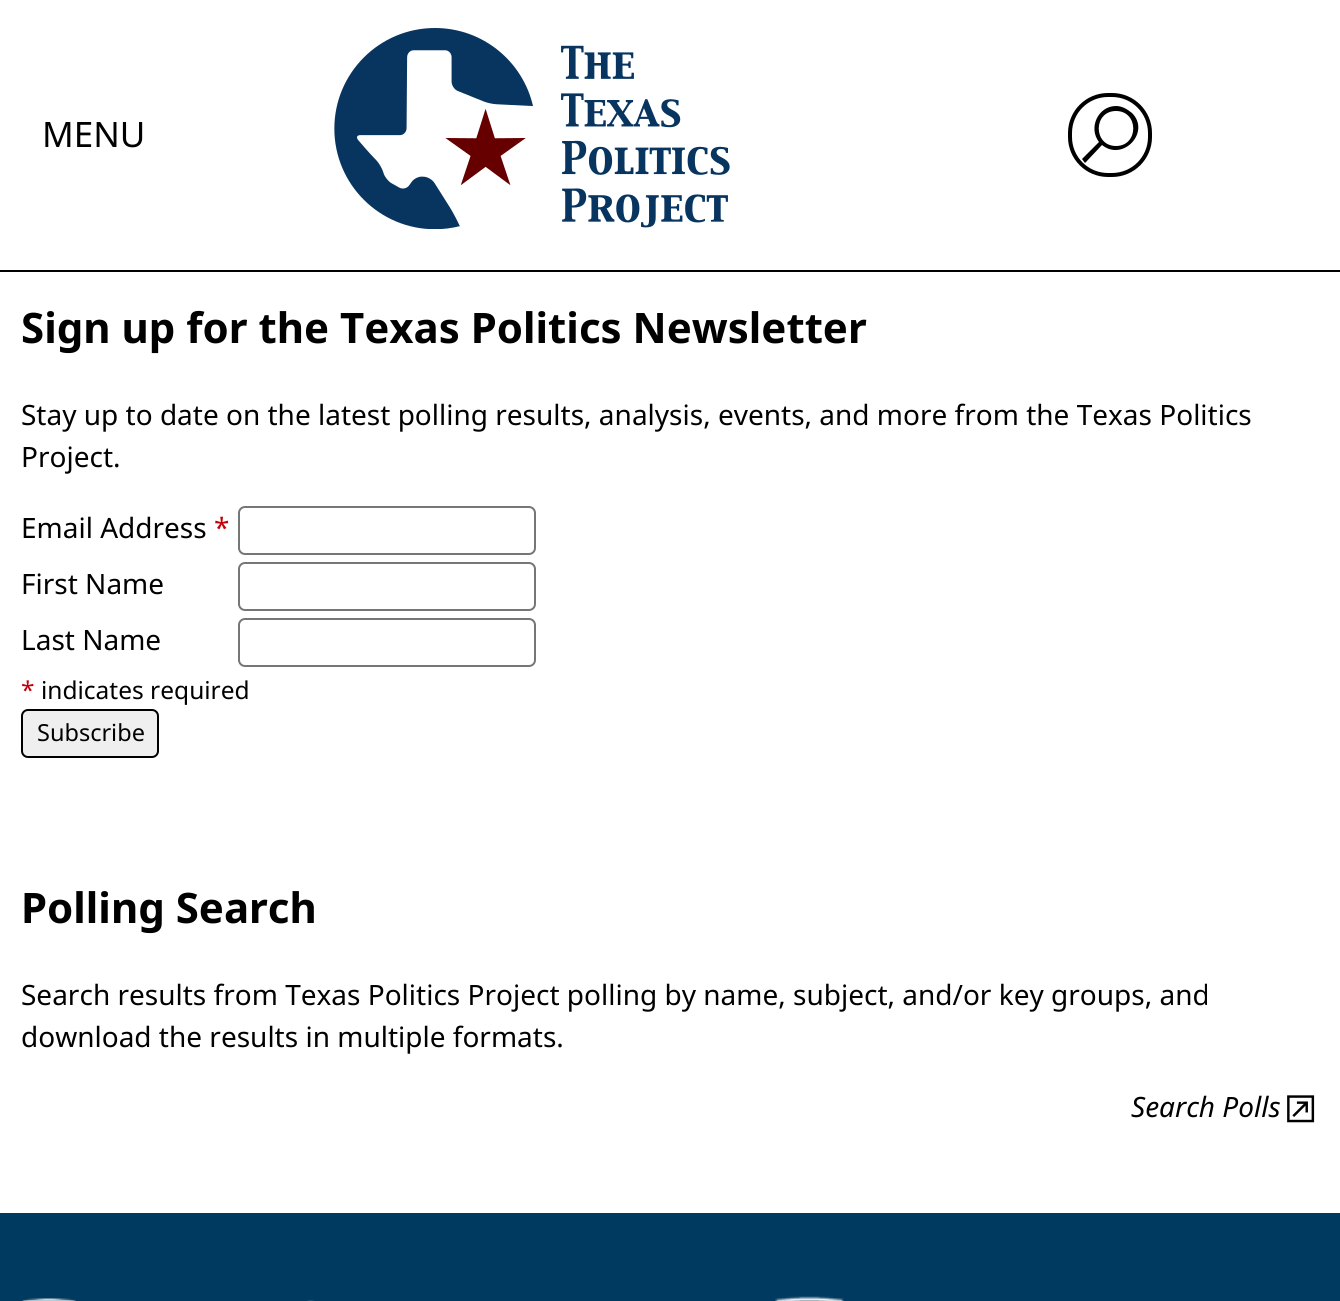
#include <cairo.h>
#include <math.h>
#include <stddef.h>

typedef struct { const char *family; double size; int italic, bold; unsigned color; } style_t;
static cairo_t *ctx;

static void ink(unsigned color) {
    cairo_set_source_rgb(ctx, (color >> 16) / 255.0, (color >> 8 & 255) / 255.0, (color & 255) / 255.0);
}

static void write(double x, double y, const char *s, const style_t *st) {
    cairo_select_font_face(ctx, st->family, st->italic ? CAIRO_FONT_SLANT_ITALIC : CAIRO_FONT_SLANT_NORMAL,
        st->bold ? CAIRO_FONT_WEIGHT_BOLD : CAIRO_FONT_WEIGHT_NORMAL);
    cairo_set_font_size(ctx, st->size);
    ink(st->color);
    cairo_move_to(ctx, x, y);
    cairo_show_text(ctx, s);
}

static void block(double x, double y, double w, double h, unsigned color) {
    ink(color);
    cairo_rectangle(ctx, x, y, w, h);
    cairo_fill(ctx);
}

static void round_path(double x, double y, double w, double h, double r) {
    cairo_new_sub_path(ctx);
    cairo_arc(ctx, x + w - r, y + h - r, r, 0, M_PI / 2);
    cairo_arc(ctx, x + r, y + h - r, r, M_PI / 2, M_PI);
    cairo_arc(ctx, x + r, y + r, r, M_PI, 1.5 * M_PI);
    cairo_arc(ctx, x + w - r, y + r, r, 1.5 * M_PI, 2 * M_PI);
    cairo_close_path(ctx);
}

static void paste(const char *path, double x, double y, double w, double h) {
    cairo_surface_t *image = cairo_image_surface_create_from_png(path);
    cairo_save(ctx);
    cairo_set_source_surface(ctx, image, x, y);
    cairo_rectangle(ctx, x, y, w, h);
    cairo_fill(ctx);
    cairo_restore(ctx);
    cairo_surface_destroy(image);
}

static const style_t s1 = {"Noto Sans", 35, 0, 0, 0x000000};
static const style_t s2 = {"Noto Sans", 42, 0, 1, 0x000000};
static const style_t s3 = {"Noto Sans", 28, 0, 0, 0x000000};
static const style_t s4 = {"Noto Sans", 28, 0, 0, 0xc10007};
static const style_t s5 = {"Noto Sans", 24.5, 0, 0, 0xc10007};
static const style_t s6 = {"Noto Sans", 24.5, 0, 0, 0x000000};
static const style_t s7 = {"Noto Sans", 23.5, 0, 0, 0x000000};
static const style_t s8 = {"Noto Sans", 28, 1, 0, 0x000000};

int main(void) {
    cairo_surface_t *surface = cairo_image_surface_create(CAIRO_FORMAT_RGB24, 1340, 1301);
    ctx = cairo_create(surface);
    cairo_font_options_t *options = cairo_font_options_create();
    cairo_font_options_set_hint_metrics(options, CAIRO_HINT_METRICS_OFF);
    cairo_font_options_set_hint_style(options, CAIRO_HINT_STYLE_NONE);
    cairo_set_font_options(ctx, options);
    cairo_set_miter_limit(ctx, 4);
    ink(0xffffff);
    cairo_paint(ctx);
    block(0, 270, 1340, 2, 0x000000);
    write(42, 147, "MENU", &s1);
    paste("pic1.png", 334, 28, 396, 201);
    round_path(1070, 95, 80, 80, 38);
    cairo_set_line_width(ctx, 4);
    cairo_stroke(ctx);
    cairo_new_path(ctx);
    cairo_move_to(ctx, 1116, 106);
    cairo_curve_to(ctx, 1098, 106, 1088, 128, 1099, 142);
    cairo_line_to(ctx, 1082, 159);
    cairo_line_to(ctx, 1085, 163);
    cairo_line_to(ctx, 1102, 145);
    cairo_curve_to(ctx, 1123, 162, 1151, 132, 1132, 113);
    cairo_curve_to(ctx, 1127, 109, 1122, 106, 1116, 106);
    cairo_close_path(ctx);
    cairo_move_to(ctx, 1116, 111);
    cairo_curve_to(ctx, 1139, 111, 1139, 146, 1116, 146);
    cairo_curve_to(ctx, 1093, 146, 1093, 111, 1116, 111);
    cairo_close_path(ctx);
    cairo_fill(ctx);
    write(21, 343, "Sign up for the Texas Politics Newsletter", &s2);
    write(21, 425, "Stay up to date on the latest polling results, analysis, events, and more from the Texas Politics", &s3);
    write(21, 467, "Project.", &s3);
    write(21, 538, "Email Address", &s3);
    write(214, 538, "*", &s4);
    round_path(239, 507, 296, 47, 6);
    ink(0x767676);
    cairo_set_line_width(ctx, 2);
    cairo_stroke(ctx);
    write(21, 594, "First Name", &s3);
    round_path(239, 563, 296, 47, 6);
    ink(0x767676);
    cairo_stroke(ctx);
    write(21, 650, "Last Name", &s3);
    round_path(239, 619, 296, 47, 6);
    ink(0x767676);
    cairo_stroke(ctx);
    write(21, 699, "*", &s5);
    write(41, 699, "indicates required", &s6);
    ink(0xefefef);
    round_path(22, 710, 136, 47, 6);
    cairo_fill_preserve(ctx);
    ink(0x000000);
    cairo_stroke(ctx);
    write(37, 741, "Subscribe", &s7);
    write(21, 923, "Polling Search", &s2);
    write(21, 1005, "Search results from Texas Politics Project polling by name, subject, and/or key groups, and", &s3);
    write(21, 1047, "download the results in multiple formats.", &s3);
    write(1131, 1117, "Search Polls", &s8);
    paste("pic2.png", 1287, 1095, 28, 28);
    block(0, 1213, 1340, 88, 0x003a60);
    paste("pic3.png", 22, 1298, 293, 3);
    paste("pic4.png", 775, 1296, 69, 5);
    cairo_surface_write_to_png(surface, "screenshot.png");
    cairo_font_options_destroy(options);
    cairo_destroy(ctx);
    cairo_surface_destroy(surface);
    return 0;
}
